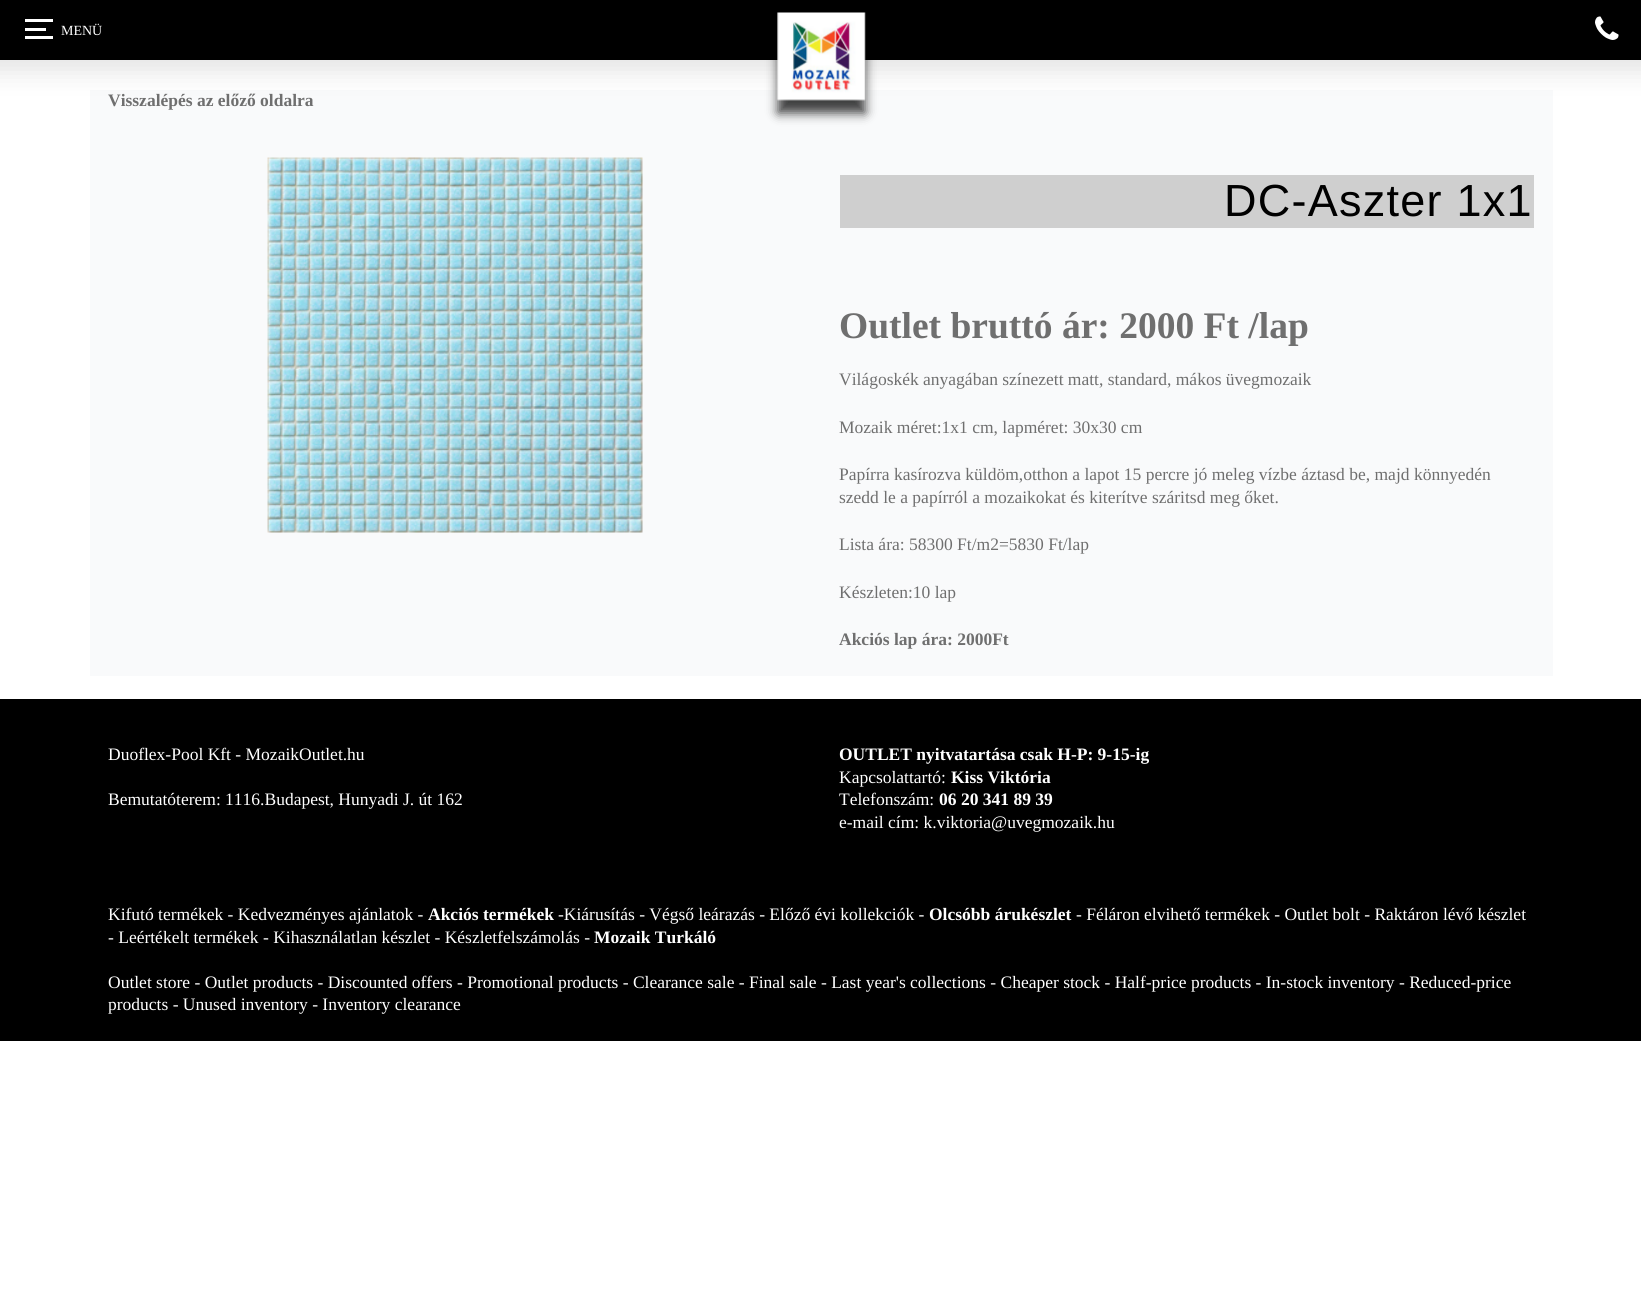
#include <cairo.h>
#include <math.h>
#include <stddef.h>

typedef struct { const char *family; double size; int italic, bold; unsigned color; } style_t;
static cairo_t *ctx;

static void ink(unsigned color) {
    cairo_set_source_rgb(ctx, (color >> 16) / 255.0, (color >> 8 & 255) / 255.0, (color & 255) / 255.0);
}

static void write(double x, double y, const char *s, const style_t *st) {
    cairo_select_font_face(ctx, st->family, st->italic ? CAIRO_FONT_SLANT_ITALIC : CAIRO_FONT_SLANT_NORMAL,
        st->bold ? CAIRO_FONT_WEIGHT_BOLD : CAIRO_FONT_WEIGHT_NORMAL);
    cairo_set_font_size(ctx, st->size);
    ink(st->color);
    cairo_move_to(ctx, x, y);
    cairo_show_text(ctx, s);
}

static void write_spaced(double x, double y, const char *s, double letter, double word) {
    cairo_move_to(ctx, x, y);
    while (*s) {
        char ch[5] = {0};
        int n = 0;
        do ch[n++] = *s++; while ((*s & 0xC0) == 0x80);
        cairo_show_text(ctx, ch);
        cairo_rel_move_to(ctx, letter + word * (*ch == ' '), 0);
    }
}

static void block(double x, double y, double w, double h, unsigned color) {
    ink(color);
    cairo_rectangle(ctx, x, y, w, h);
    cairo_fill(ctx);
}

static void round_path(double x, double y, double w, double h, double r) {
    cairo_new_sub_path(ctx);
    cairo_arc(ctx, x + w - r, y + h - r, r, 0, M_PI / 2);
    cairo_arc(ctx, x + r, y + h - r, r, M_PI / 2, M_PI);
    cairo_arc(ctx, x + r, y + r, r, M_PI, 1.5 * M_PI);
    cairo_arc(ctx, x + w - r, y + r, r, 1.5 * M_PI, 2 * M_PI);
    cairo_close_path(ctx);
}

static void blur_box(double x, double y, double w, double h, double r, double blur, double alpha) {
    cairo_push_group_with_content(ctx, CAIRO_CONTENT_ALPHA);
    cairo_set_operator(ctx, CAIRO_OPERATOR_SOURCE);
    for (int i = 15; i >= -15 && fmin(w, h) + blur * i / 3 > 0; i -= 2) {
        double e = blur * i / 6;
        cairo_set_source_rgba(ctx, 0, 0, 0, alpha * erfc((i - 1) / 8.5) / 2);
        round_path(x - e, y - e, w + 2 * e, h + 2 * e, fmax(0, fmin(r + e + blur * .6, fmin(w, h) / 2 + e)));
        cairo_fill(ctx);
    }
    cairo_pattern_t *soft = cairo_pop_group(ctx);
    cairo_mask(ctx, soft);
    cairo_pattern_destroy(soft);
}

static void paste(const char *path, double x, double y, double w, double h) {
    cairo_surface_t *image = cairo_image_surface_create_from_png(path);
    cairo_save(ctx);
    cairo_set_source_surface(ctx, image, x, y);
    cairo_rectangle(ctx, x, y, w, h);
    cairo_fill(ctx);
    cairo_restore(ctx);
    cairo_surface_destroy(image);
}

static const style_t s1 = {"Liberation Serif", 14, 0, 0, 0xffffff};
static const style_t s2 = {"Liberation Serif", 17.5, 0, 1, 0x6f6f6f};
static const style_t s3 = {"Liberation Serif", 37.5, 0, 1, 0x6f6f6f};
static const style_t s4 = {"Liberation Serif", 17.5, 0, 0, 0x6f6f6f};
static const style_t s5 = {"Liberation Serif", 17.5, 0, 0, 0xffffff};
static const style_t s6 = {"Liberation Serif", 17.5, 0, 1, 0xffffff};

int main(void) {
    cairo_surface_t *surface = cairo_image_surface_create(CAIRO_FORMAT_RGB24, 1641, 1296);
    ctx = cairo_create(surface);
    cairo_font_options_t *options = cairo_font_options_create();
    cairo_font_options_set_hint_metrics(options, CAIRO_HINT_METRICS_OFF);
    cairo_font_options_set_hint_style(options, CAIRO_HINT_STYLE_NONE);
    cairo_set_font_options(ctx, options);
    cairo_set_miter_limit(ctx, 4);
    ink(0xffffff);
    cairo_paint(ctx);
    block(90, 90, 1463, 586, 0xf9fafb);
    ink(0x000000);
    blur_box(-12, -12, 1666, 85, 0, 12.5, 0.1);
    block(0, 0, 1641, 60, 0x000000);
    block(25, 28, 21, 3, 0xffffff);
    block(25, 19, 28, 3, 0xffffff);
    write(61, 35, "MENÜ", &s1);
    block(25, 36, 28, 3, 0xffffff);
    ink(0x000000);
    blur_box(778, 25, 87, 88, 0, 5.5, 0.75);
    paste("pic1.png", 777, 12, 89, 89);
    paste("pic2.png", 1595, 16, 24, 24);
    write(108, 106, "Visszalépés az előző oldalra", &s2);
    paste("pic3.png", 267, 157, 376, 376);
    block(840, 175, 694, 53, 0xcfcfcf);
    cairo_select_font_face(ctx, "Liberation Sans", CAIRO_FONT_SLANT_NORMAL, CAIRO_FONT_WEIGHT_NORMAL);
    cairo_set_font_size(ctx, 45);
    ink(0x000000);
    write_spaced(1224, 216, "DC-Aszter 1x1", 1.25, 0);
    write(839, 338, "Outlet bruttó ár: 2000 Ft /lap", &s3);
    write(839, 385, "Világoskék anyagában színezett matt, standard, mákos üvegmozaik", &s4);
    write(839, 433, "Mozaik méret:1x1 cm, lapméret: 30x30 cm", &s4);
    write(839, 480, "Papírra kasírozva küldöm,otthon a lapot 15 percre jó meleg vízbe áztasd be, majd könnyedén", &s4);
    write(839, 503, "szedd le a papírról a mozaikokat és kiterítve száritsd meg őket.", &s4);
    write(839, 550, "Lista ára: 58300 Ft/m2=5830 Ft/lap", &s4);
    write(839, 598, "Készleten:10 lap", &s4);
    write(839, 645, "Akciós lap ára: 2000Ft", &s2);
    block(0, 699, 1641, 342, 0x000000);
    write(108, 760, "Duoflex-Pool Kft - MozaikOutlet.hu", &s5);
    write(108, 805, "Bemutatóterem: 1116.Budapest, Hunyadi J. út 162", &s5);
    write(839, 760, "OUTLET nyitvatartása csak H-P: 9-15-ig", &s6);
    write(839, 783, "Kapcsolattartó:", &s5);
    write(951, 783, "Kiss Viktória", &s6);
    write(839, 805, "Telefonszám:", &s5);
    write(939, 805, "06 20 341 89 39", &s6);
    write(839, 828, "e-mail cím: k.viktoria@uvegmozaik.hu", &s5);
    write(108, 920, "Kifutó termékek - Kedvezményes ajánlatok -", &s5);
    write(428, 920, "Akciós termékek", &s6);
    write(558, 920, "-Kiárusítás - Végső leárazás - Előző évi kollekciók -", &s5);
    write(929, 920, "Olcsóbb árukészlet", &s6);
    write(1076, 920, "- Féláron elvihető termékek - Outlet bolt - Raktáron lévő készlet", &s5);
    write(108, 943, "- Leértékelt termékek - Kihasználatlan készlet - Készletfelszámolás -", &s5);
    write(594, 943, "Mozaik Turkáló", &s6);
    write(108, 988, "Outlet store - Outlet products - Discounted offers - Promotional products - Clearance sale - Final sale - Last year's collections - Cheaper stock - Half-price products - In-stock inventory - Reduced-price", &s5);
    write(108, 1010, "products - Unused inventory - Inventory clearance", &s5);
    cairo_surface_write_to_png(surface, "screenshot.png");
    cairo_font_options_destroy(options);
    cairo_destroy(ctx);
    cairo_surface_destroy(surface);
    return 0;
}
